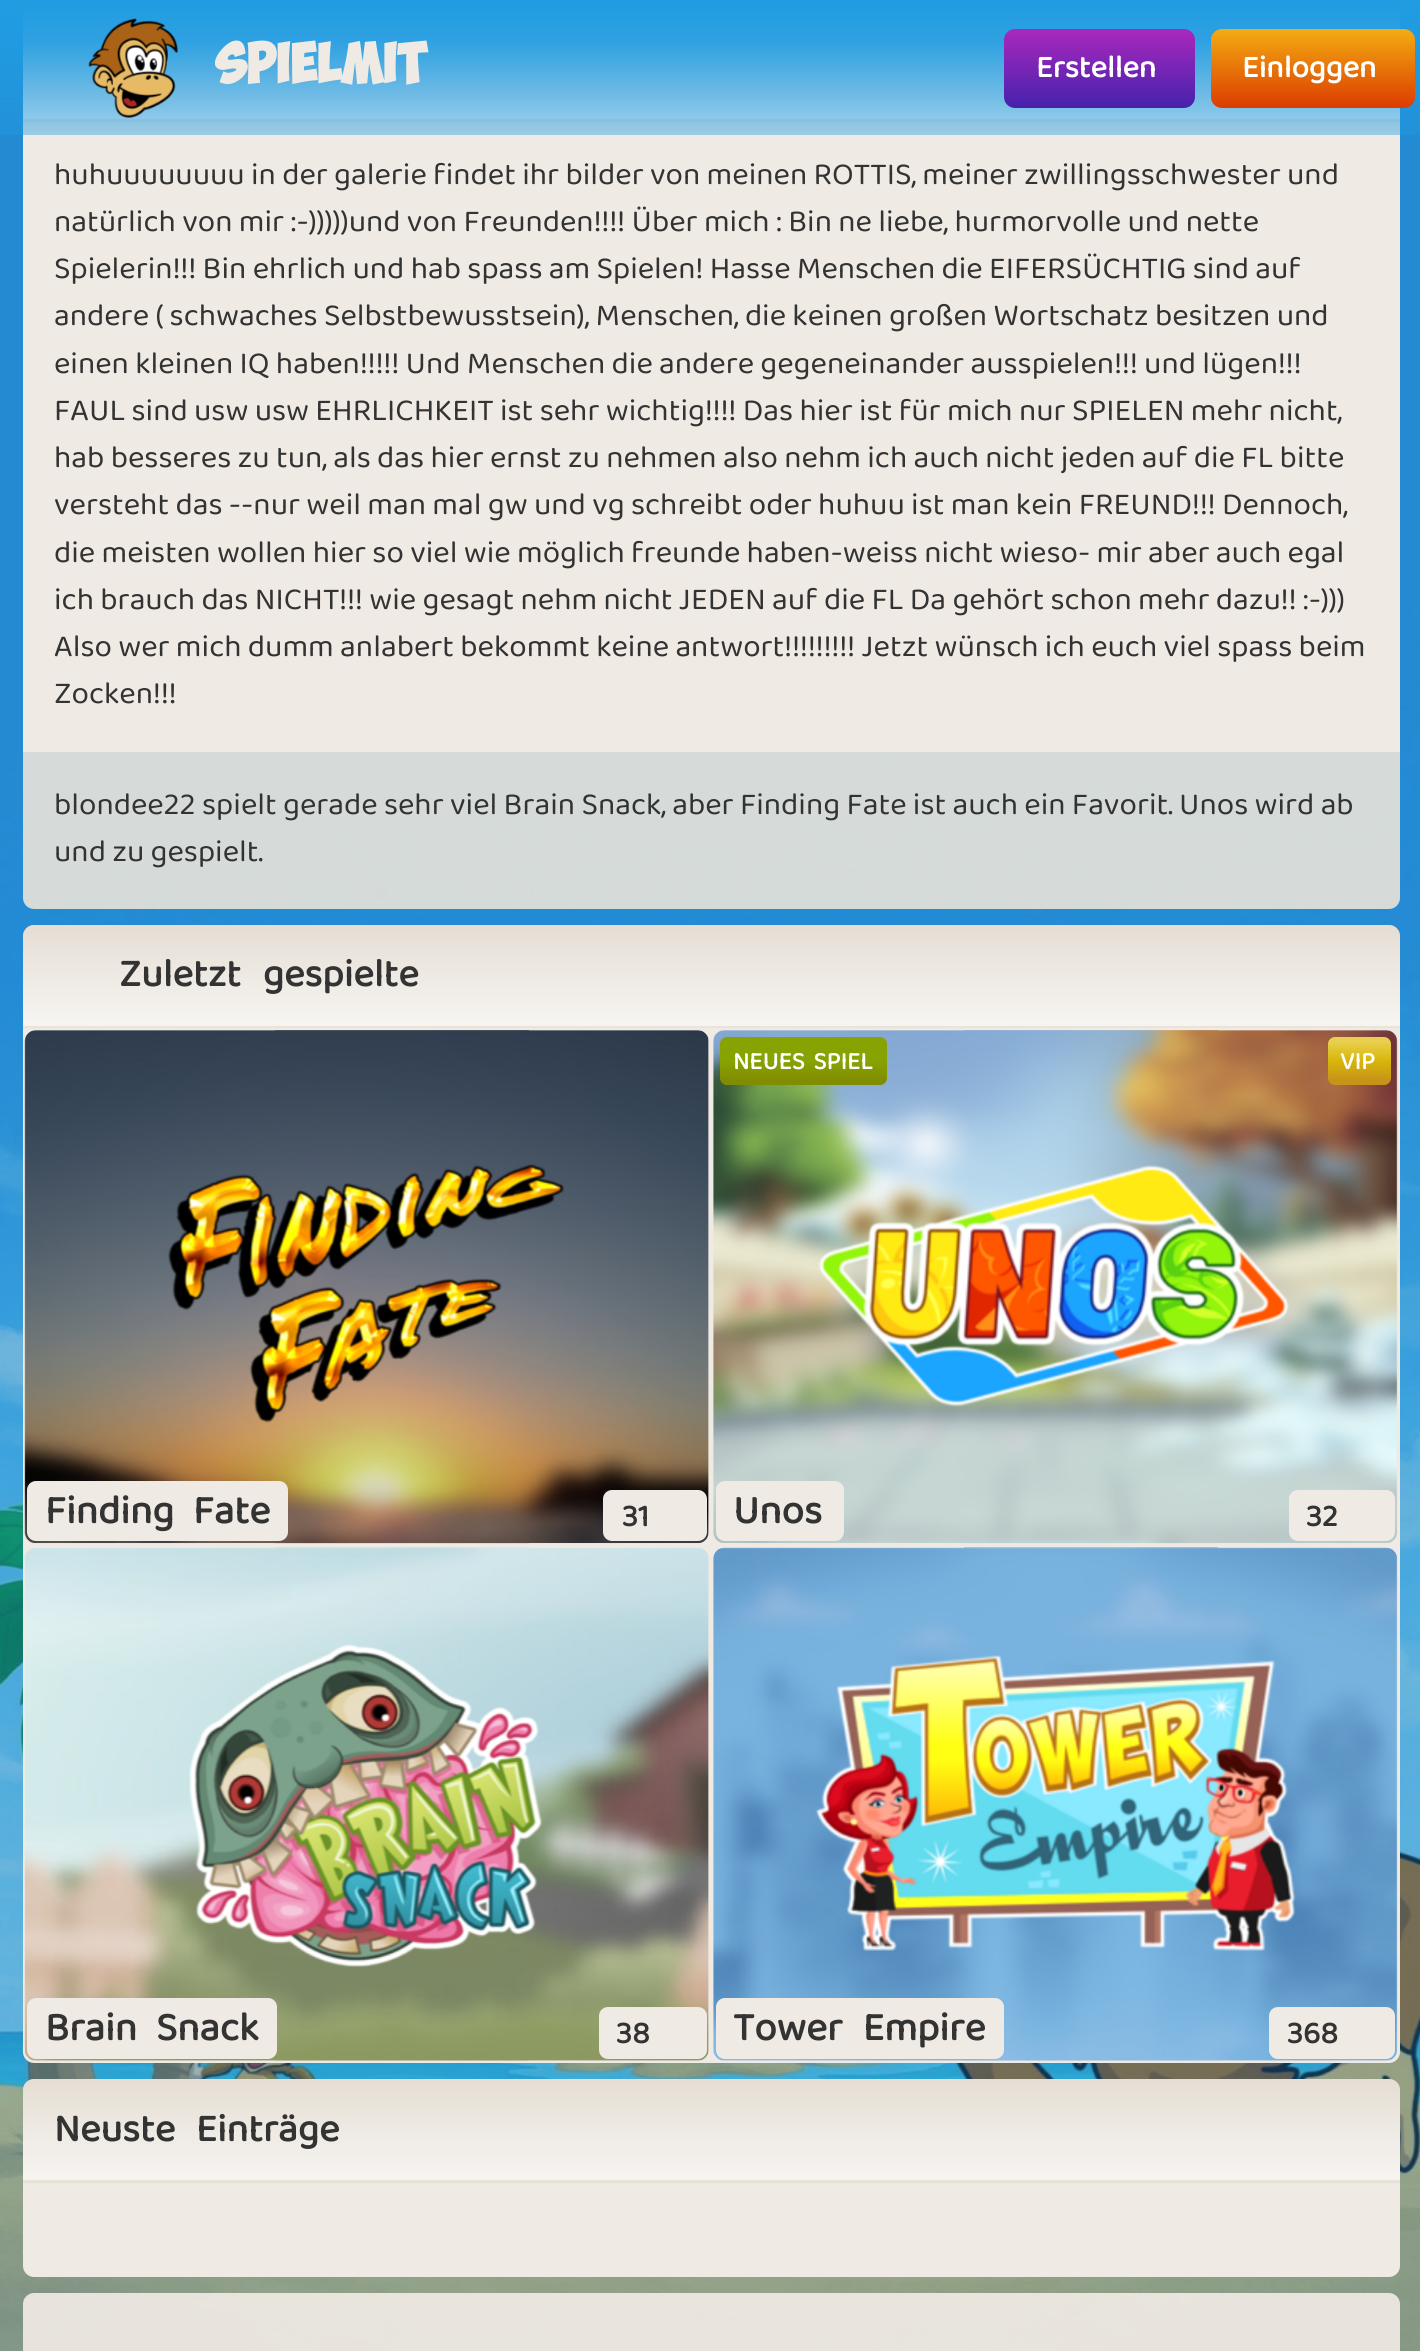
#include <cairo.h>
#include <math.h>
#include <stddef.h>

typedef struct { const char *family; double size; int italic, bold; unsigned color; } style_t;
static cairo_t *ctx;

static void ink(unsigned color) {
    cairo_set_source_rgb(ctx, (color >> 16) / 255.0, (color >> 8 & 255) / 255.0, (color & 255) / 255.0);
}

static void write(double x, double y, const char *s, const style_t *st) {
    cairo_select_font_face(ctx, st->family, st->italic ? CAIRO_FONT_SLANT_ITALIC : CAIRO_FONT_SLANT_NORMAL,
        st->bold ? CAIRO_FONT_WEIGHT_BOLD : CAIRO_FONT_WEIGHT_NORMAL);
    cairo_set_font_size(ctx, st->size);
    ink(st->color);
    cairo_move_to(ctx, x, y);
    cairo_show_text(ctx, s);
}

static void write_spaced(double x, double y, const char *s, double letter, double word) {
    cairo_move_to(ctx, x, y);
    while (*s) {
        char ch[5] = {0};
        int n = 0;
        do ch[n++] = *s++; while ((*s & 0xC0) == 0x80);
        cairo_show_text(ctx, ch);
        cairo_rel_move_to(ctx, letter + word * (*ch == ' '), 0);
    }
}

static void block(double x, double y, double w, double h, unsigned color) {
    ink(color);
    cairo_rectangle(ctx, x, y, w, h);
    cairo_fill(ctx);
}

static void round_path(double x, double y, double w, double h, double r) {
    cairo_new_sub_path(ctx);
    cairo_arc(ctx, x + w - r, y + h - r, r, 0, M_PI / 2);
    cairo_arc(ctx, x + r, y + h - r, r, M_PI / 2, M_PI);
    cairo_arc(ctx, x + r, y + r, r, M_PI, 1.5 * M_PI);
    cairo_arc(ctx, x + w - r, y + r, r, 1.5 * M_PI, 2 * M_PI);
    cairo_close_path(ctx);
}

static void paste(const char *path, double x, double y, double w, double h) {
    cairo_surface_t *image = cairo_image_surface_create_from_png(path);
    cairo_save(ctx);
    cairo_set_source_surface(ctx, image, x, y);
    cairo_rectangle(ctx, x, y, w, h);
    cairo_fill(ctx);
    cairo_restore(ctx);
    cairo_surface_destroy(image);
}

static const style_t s1 = {"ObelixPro", 40.5, 0, 1, 0xefeae4};
static const style_t s2 = {"Baloo 2", 31.5, 0, 1, 0xffffff};
static const style_t s3 = {"Baloo 2", 31.5, 0, 0, 0x333333};
static const style_t s4 = {"Baloo 2", 31.5, 0, 1, 0x333333};
static const style_t s5 = {"Baloo 2", 24.75, 0, 1, 0xffffff};
static const style_t s6 = {"Baloo 2", 40.5, 0, 1, 0x333333};

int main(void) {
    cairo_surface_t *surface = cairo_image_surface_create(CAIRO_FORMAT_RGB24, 1420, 2351);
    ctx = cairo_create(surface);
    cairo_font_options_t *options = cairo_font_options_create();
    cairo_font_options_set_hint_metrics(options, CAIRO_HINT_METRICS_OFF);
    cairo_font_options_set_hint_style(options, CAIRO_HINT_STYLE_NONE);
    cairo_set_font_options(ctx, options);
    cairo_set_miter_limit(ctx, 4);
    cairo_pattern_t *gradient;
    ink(0xffffff);
    cairo_paint(ctx);
    paste("pic1.png", 0, 3, 1420, 2348);
    ink(0xefeae4);
    cairo_new_path(ctx);
    cairo_move_to(ctx, 34, 5);
    cairo_line_to(ctx, 1389, 5);
    cairo_curve_to(ctx, 1395, 5, 1400, 10, 1400, 16);
    cairo_line_to(ctx, 1400, 122);
    cairo_line_to(ctx, 23, 122);
    cairo_line_to(ctx, 23, 16);
    cairo_curve_to(ctx, 23, 10, 28, 5, 34, 5);
    cairo_close_path(ctx);
    cairo_fill(ctx);
    gradient = cairo_pattern_create_linear(711, 4.5, 711, 119);
    cairo_pattern_add_color_stop_rgba(gradient, 0, 0.863, 0.82, 0.769, 0.5);
    cairo_pattern_add_color_stop_rgba(gradient, 1, 1, 1, 1, 0.5);
    cairo_set_source(ctx, gradient);
    cairo_pattern_destroy(gradient);
    cairo_new_path(ctx);
    cairo_move_to(ctx, 34, 5);
    cairo_line_to(ctx, 1389, 5);
    cairo_curve_to(ctx, 1395, 5, 1400, 10, 1400, 16);
    cairo_line_to(ctx, 1400, 119);
    cairo_line_to(ctx, 23, 119);
    cairo_line_to(ctx, 23, 16);
    cairo_curve_to(ctx, 23, 10, 28, 5, 34, 5);
    cairo_close_path(ctx);
    cairo_fill(ctx);
    gradient = cairo_pattern_create_linear(711, 119, 711, 234);
    cairo_pattern_add_color_stop_rgba(gradient, 0, 0.902, 0.871, 0.831, 1);
    cairo_pattern_add_color_stop_rgba(gradient, 1, 0.969, 0.961, 0.949, 1);
    cairo_set_source(ctx, gradient);
    cairo_pattern_destroy(gradient);
    cairo_rectangle(ctx, 23, 121, 1377, 1);
    cairo_fill(ctx);
    block(23, 119, 1377, 2, 0xe9e3da);
    block(23, 122, 1377, 630, 0xefeae4);
    gradient = cairo_pattern_create_linear(711, 0, 711, 135);
    cairo_pattern_add_color_stop_rgba(gradient, 0, 0.125, 0.612, 0.886, 1);
    cairo_pattern_add_color_stop_rgba(gradient, 0.3, 0.125, 0.612, 0.886, 0.93);
    cairo_pattern_add_color_stop_rgba(gradient, 1, 0.125, 0.612, 0.886, 0.4);
    cairo_set_source(ctx, gradient);
    cairo_pattern_destroy(gradient);
    cairo_rectangle(ctx, 0, 0, 1420, 135);
    cairo_fill(ctx);
    paste("pic2.png", 88, 18, 90, 100);
    write(215, 84, "Spielmit", &s1);
    gradient = cairo_pattern_create_linear(1099, 108, 1099, 29);
    cairo_pattern_add_color_stop_rgba(gradient, 0, 0.271, 0.133, 0.675, 1);
    cairo_pattern_add_color_stop_rgba(gradient, 1, 0.667, 0.157, 0.741, 1);
    cairo_set_source(ctx, gradient);
    cairo_pattern_destroy(gradient);
    round_path(1004, 29, 191, 79, 11);
    cairo_fill(ctx);
    write(1036, 77, "Erstellen", &s2);
    gradient = cairo_pattern_create_linear(1313, 29, 1313, 108);
    cairo_pattern_add_color_stop_rgba(gradient, 0, 0.953, 0.675, 0.071, 1);
    cairo_pattern_add_color_stop_rgba(gradient, 1, 0.863, 0.235, 0, 1);
    cairo_set_source(ctx, gradient);
    cairo_pattern_destroy(gradient);
    round_path(1211, 29, 204, 79, 11);
    cairo_fill(ctx);
    write(1242, 77, "Einloggen", &s2);
    write(54, 184, "huhuuuuuuuu in der galerie findet ihr bilder von meinen ROTTIS, meiner zwillingsschwester und", &s3);
    write(54, 231, "natürlich von mir :-)))))und von Freunden!!!! Über mich : Bin ne liebe, hurmorvolle und nette", &s3);
    write(54, 278, "Spielerin!!! Bin ehrlich und hab spass am Spielen! Hasse Menschen die EIFERSÜCHTIG sind auf", &s3);
    write(54, 325, "andere ( schwaches Selbstbewusstsein), Menschen, die keinen großen Wortschatz besitzen und", &s3);
    write(54, 373, "einen kleinen IQ haben!!!!! Und Menschen die andere gegeneinander ausspielen!!! und lügen!!!", &s3);
    write(54, 420, "FAUL sind usw usw EHRLICHKEIT ist sehr wichtig!!!! Das hier ist für mich nur SPIELEN mehr nicht,", &s3);
    write(54, 467, "hab besseres zu tun, als das hier ernst zu nehmen also nehm ich auch nicht jeden auf die FL bitte", &s3);
    write(54, 514, "versteht das --nur weil man mal gw und vg schreibt oder huhuu ist man kein FREUND!!! Dennoch,", &s3);
    write(54, 562, "die meisten wollen hier so viel wie möglich freunde haben-weiss nicht wieso- mir aber auch egal", &s3);
    write(54, 609, "ich brauch das NICHT!!! wie gesagt nehm nicht JEDEN auf die FL Da gehört schon mehr dazu!! :-)))", &s3);
    write(54, 656, "Also wer mich dumm anlabert bekommt keine antwort!!!!!!!!! Jetzt wünsch ich euch viel spass beim", &s3);
    write(54, 703, "Zocken!!!", &s3);
    cairo_set_source_rgba(ctx, 0.914, 0.89, 0.855, 0.9);
    cairo_new_path(ctx);
    cairo_move_to(ctx, 23, 752);
    cairo_line_to(ctx, 1400, 752);
    cairo_line_to(ctx, 1400, 898);
    cairo_curve_to(ctx, 1400, 904, 1395, 909, 1389, 909);
    cairo_line_to(ctx, 34, 909);
    cairo_curve_to(ctx, 28, 909, 23, 904, 23, 898);
    cairo_close_path(ctx);
    cairo_fill(ctx);
    write(54, 814, "blondee22 spielt gerade sehr viel Brain Snack, aber Finding Fate ist auch ein Favorit. Unos wird ab", &s3);
    write(54, 861, "und zu gespielt.", &s3);
    ink(0xefeae4);
    cairo_new_path(ctx);
    cairo_move_to(ctx, 34, 925);
    cairo_line_to(ctx, 1389, 925);
    cairo_curve_to(ctx, 1395, 925, 1400, 930, 1400, 936);
    cairo_line_to(ctx, 1400, 1028);
    cairo_line_to(ctx, 23, 1028);
    cairo_line_to(ctx, 23, 936);
    cairo_curve_to(ctx, 23, 930, 28, 925, 34, 925);
    cairo_close_path(ctx);
    cairo_fill(ctx);
    gradient = cairo_pattern_create_linear(711, 925, 711, 1026);
    cairo_pattern_add_color_stop_rgba(gradient, 0, 0.863, 0.82, 0.769, 0.5);
    cairo_pattern_add_color_stop_rgba(gradient, 1, 1, 1, 1, 0.5);
    cairo_set_source(ctx, gradient);
    cairo_pattern_destroy(gradient);
    cairo_new_path(ctx);
    cairo_move_to(ctx, 34, 925);
    cairo_line_to(ctx, 1389, 925);
    cairo_curve_to(ctx, 1395, 925, 1400, 930, 1400, 936);
    cairo_line_to(ctx, 1400, 1026);
    cairo_line_to(ctx, 23, 1026);
    cairo_line_to(ctx, 23, 936);
    cairo_curve_to(ctx, 23, 930, 28, 925, 34, 925);
    cairo_close_path(ctx);
    cairo_fill(ctx);
    block(23, 1026, 1377, 2, 0xe9e3da);
    cairo_select_font_face(ctx, "Baloo 2", CAIRO_FONT_SLANT_NORMAL, CAIRO_FONT_WEIGHT_BOLD);
    cairo_set_font_size(ctx, 39.5);
    ink(0x333333);
    write_spaced(119, 986, "Zuletzt gespielte", 0, 14);
    ink(0xefeae4);
    cairo_new_path(ctx);
    cairo_move_to(ctx, 23, 1028);
    cairo_line_to(ctx, 1400, 1028);
    cairo_line_to(ctx, 1400, 2052);
    cairo_curve_to(ctx, 1400, 2058, 1395, 2063, 1389, 2063);
    cairo_line_to(ctx, 34, 2063);
    cairo_curve_to(ctx, 28, 2063, 23, 2058, 23, 2052);
    cairo_close_path(ctx);
    cairo_fill(ctx);
    paste("pic3.png", 24, 1030, 685, 514);
    paste("pic4.png", 168, 1164, 396, 259);
    round_path(27, 1481, 261, 60, 9);
    cairo_fill(ctx);
    cairo_set_font_size(ctx, 40.5);
    ink(0x333333);
    write_spaced(45, 1523, "Finding Fate", 0, 11);
    ink(0xefeae4);
    round_path(603, 1490, 104, 51, 9);
    cairo_fill(ctx);
    write(622, 1526, "31", &s4);
    paste("pic5.png", 713, 1030, 685, 514);
    gradient = cairo_pattern_create_linear(803, 1037, 803, 1085);
    cairo_pattern_add_color_stop_rgba(gradient, 0.5, 0.529, 0.639, 0.004, 1);
    cairo_pattern_add_color_stop_rgba(gradient, 0.9, 0.506, 0.553, 0, 1);
    cairo_set_source(ctx, gradient);
    cairo_pattern_destroy(gradient);
    round_path(720, 1037, 167, 48, 7);
    cairo_fill(ctx);
    cairo_set_font_size(ctx, 24.75);
    ink(0xffffff);
    write_spaced(733, 1069, "NEUES SPIEL", 0, 4);
    gradient = cairo_pattern_create_linear(1359, 1037, 1359, 1085);
    cairo_pattern_add_color_stop_rgba(gradient, 0.1, 0.91, 0.812, 0.306, 1);
    cairo_pattern_add_color_stop_rgba(gradient, 0.5, 0.843, 0.714, 0.035, 1);
    cairo_pattern_add_color_stop_rgba(gradient, 0.9, 0.78, 0.58, 0.102, 1);
    cairo_set_source(ctx, gradient);
    cairo_pattern_destroy(gradient);
    round_path(1328, 1037, 63, 48, 7);
    cairo_fill(ctx);
    write(1340, 1069, "VIP", &s5);
    paste("pic6.png", 818, 1165, 471, 242);
    ink(0xefeae4);
    round_path(716, 1481, 128, 60, 9);
    cairo_fill(ctx);
    write(733, 1523, "Unos", &s6);
    ink(0xefeae4);
    round_path(1289, 1490, 106, 51, 9);
    cairo_fill(ctx);
    write(1306, 1526, "32", &s4);
    paste("pic7.png", 24, 1547, 685, 514);
    paste("pic8.png", 189, 1644, 353, 323);
    ink(0xefeae4);
    round_path(27, 1998, 250, 61, 9);
    cairo_fill(ctx);
    cairo_set_font_size(ctx, 40.5);
    ink(0x333333);
    write_spaced(45, 2040, "Brain Snack", 0, 11);
    ink(0xefeae4);
    round_path(599, 2007, 108, 52, 9);
    cairo_fill(ctx);
    write(616, 2043, "38", &s4);
    paste("pic9.png", 713, 1547, 685, 514);
    paste("pic10.png", 815, 1655, 481, 296);
    ink(0xefeae4);
    round_path(716, 1998, 288, 61, 9);
    cairo_fill(ctx);
    cairo_set_font_size(ctx, 40.5);
    ink(0x333333);
    write_spaced(733, 2040, "Tower Empire", 0, 12);
    ink(0xefeae4);
    round_path(1269, 2007, 126, 52, 9);
    cairo_fill(ctx);
    write(1287, 2043, "368", &s4);
    ink(0xefeae4);
    cairo_new_path(ctx);
    cairo_move_to(ctx, 34, 2079);
    cairo_line_to(ctx, 1389, 2079);
    cairo_curve_to(ctx, 1395, 2079, 1400, 2084, 1400, 2090);
    cairo_line_to(ctx, 1400, 2183);
    cairo_line_to(ctx, 23, 2183);
    cairo_line_to(ctx, 23, 2090);
    cairo_curve_to(ctx, 23, 2084, 28, 2079, 34, 2079);
    cairo_close_path(ctx);
    cairo_fill(ctx);
    gradient = cairo_pattern_create_linear(711, 2079, 711, 2180);
    cairo_pattern_add_color_stop_rgba(gradient, 0, 0.863, 0.82, 0.769, 0.5);
    cairo_pattern_add_color_stop_rgba(gradient, 1, 1, 1, 1, 0.5);
    cairo_set_source(ctx, gradient);
    cairo_pattern_destroy(gradient);
    cairo_new_path(ctx);
    cairo_move_to(ctx, 34, 2079);
    cairo_line_to(ctx, 1389, 2079);
    cairo_curve_to(ctx, 1395, 2079, 1400, 2084, 1400, 2090);
    cairo_line_to(ctx, 1400, 2180);
    cairo_line_to(ctx, 23, 2180);
    cairo_line_to(ctx, 23, 2090);
    cairo_curve_to(ctx, 23, 2084, 28, 2079, 34, 2079);
    cairo_close_path(ctx);
    cairo_fill(ctx);
    gradient = cairo_pattern_create_linear(711, 2180, 711, 2282);
    cairo_pattern_add_color_stop_rgba(gradient, 0, 0.902, 0.871, 0.831, 1);
    cairo_pattern_add_color_stop_rgba(gradient, 1, 0.969, 0.961, 0.949, 1);
    cairo_set_source(ctx, gradient);
    cairo_pattern_destroy(gradient);
    cairo_rectangle(ctx, 23, 2182, 1377, 1);
    cairo_fill(ctx);
    block(23, 2180, 1377, 2, 0xe9e3da);
    cairo_set_font_size(ctx, 39.5);
    ink(0x333333);
    write_spaced(54, 2141, "Neuste Einträge", 0, 13);
    ink(0xefeae4);
    cairo_new_path(ctx);
    cairo_move_to(ctx, 23, 2183);
    cairo_line_to(ctx, 1400, 2183);
    cairo_line_to(ctx, 1400, 2266);
    cairo_curve_to(ctx, 1400, 2272, 1395, 2277, 1389, 2277);
    cairo_line_to(ctx, 34, 2277);
    cairo_curve_to(ctx, 28, 2277, 23, 2272, 23, 2266);
    cairo_close_path(ctx);
    cairo_fill(ctx);
    cairo_set_source_rgba(ctx, 0.937, 0.918, 0.894, 0.93);
    cairo_new_path(ctx);
    cairo_move_to(ctx, 34, 2293);
    cairo_line_to(ctx, 1389, 2293);
    cairo_curve_to(ctx, 1395, 2293, 1400, 2298, 1400, 2304);
    cairo_line_to(ctx, 1400, 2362);
    cairo_line_to(ctx, 23, 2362);
    cairo_line_to(ctx, 23, 2304);
    cairo_curve_to(ctx, 23, 2298, 28, 2293, 34, 2293);
    cairo_close_path(ctx);
    cairo_fill(ctx);
    cairo_surface_write_to_png(surface, "screenshot.png");
    cairo_font_options_destroy(options);
    cairo_destroy(ctx);
    cairo_surface_destroy(surface);
    return 0;
}
